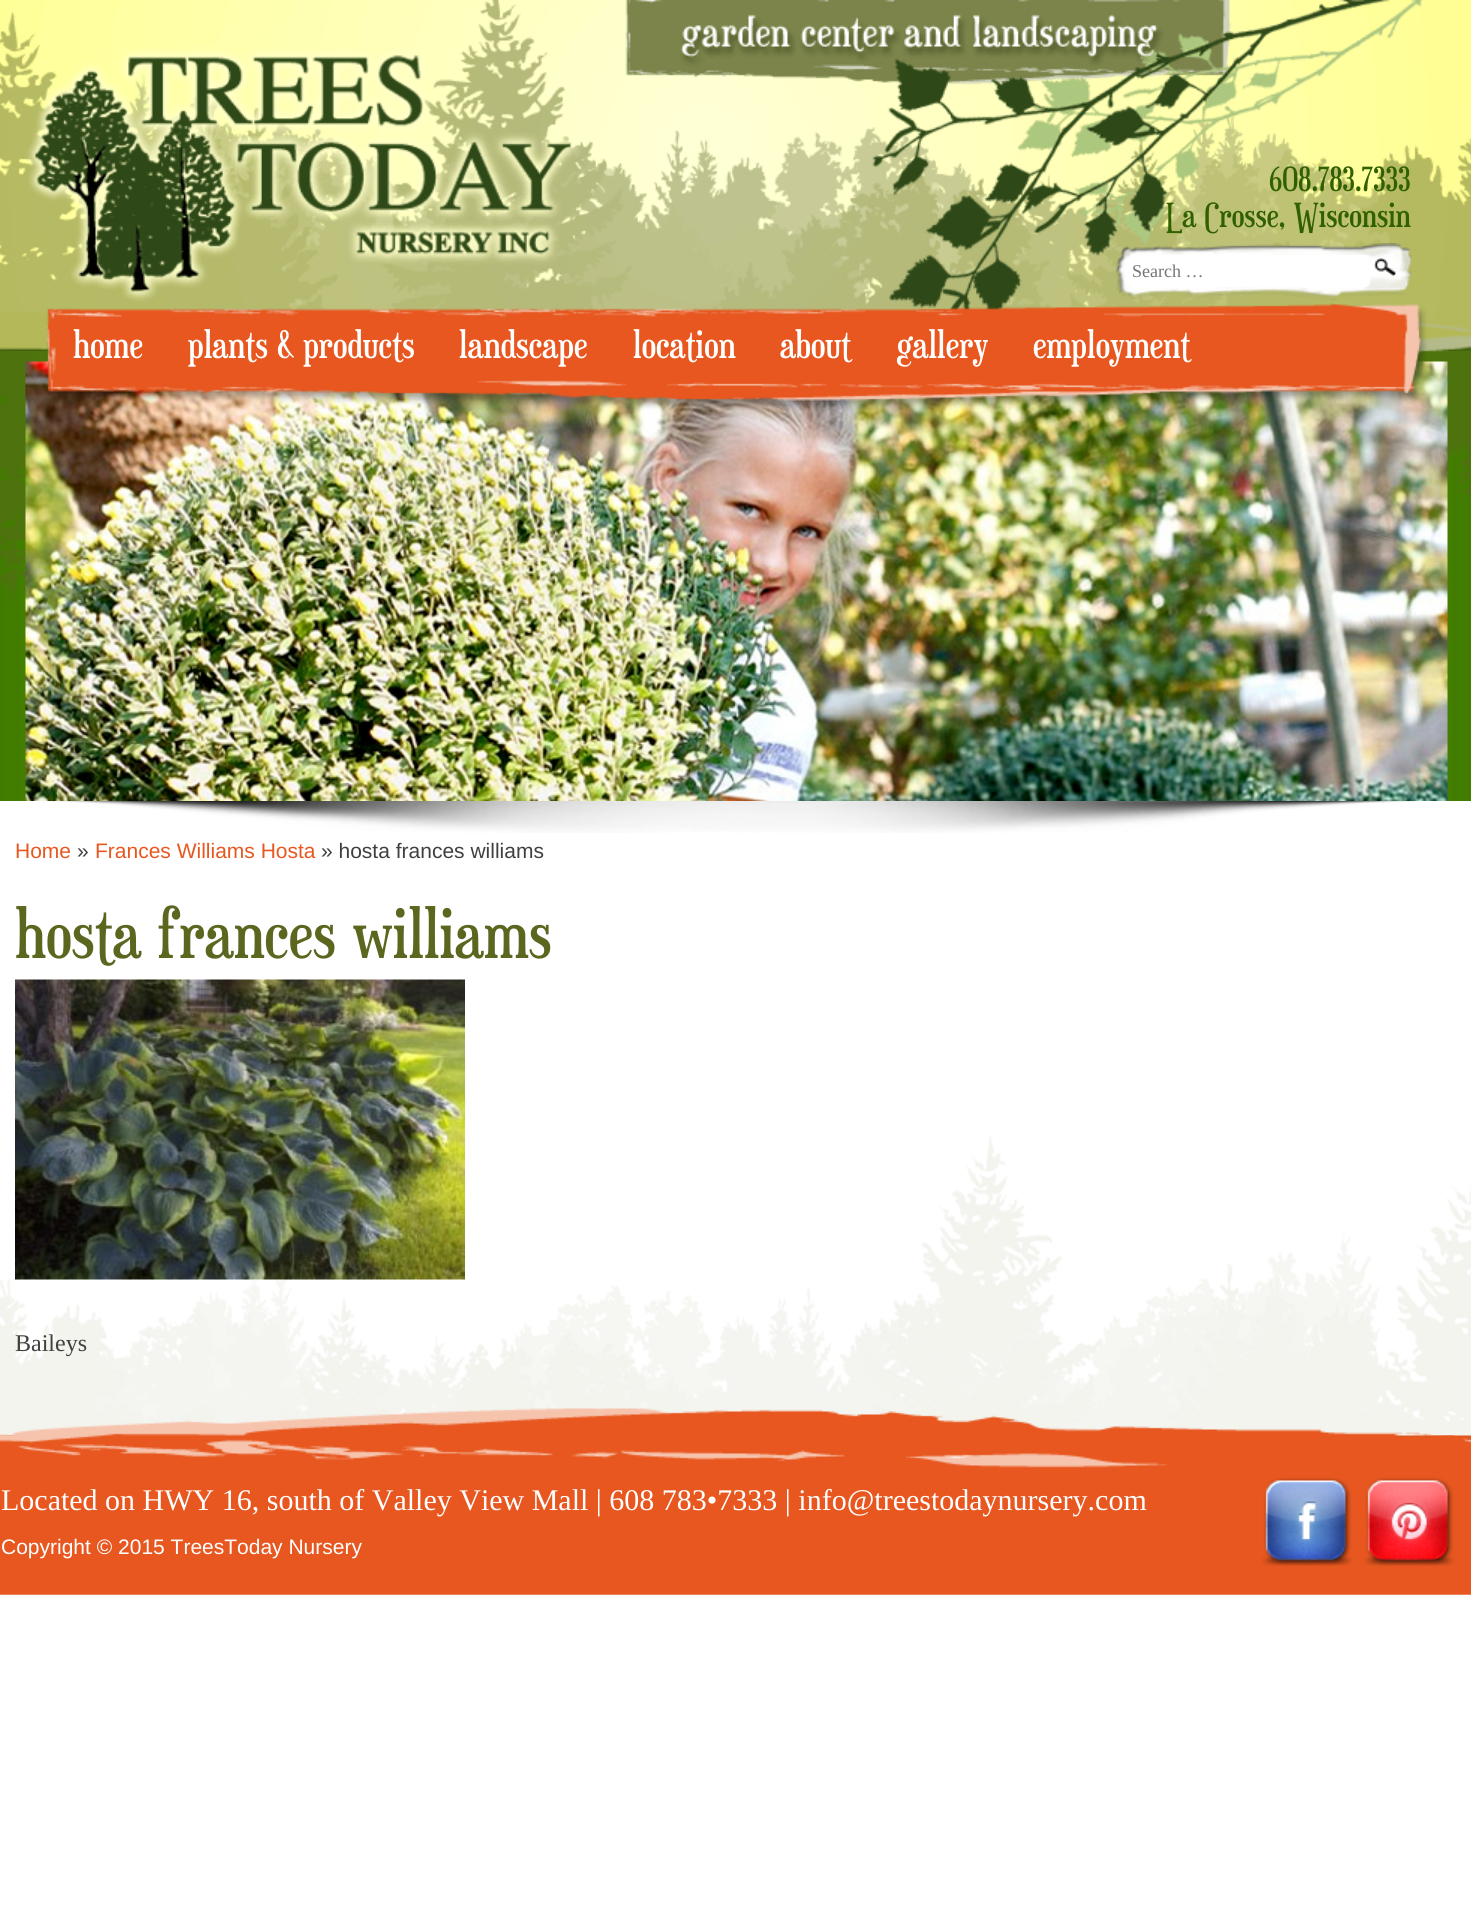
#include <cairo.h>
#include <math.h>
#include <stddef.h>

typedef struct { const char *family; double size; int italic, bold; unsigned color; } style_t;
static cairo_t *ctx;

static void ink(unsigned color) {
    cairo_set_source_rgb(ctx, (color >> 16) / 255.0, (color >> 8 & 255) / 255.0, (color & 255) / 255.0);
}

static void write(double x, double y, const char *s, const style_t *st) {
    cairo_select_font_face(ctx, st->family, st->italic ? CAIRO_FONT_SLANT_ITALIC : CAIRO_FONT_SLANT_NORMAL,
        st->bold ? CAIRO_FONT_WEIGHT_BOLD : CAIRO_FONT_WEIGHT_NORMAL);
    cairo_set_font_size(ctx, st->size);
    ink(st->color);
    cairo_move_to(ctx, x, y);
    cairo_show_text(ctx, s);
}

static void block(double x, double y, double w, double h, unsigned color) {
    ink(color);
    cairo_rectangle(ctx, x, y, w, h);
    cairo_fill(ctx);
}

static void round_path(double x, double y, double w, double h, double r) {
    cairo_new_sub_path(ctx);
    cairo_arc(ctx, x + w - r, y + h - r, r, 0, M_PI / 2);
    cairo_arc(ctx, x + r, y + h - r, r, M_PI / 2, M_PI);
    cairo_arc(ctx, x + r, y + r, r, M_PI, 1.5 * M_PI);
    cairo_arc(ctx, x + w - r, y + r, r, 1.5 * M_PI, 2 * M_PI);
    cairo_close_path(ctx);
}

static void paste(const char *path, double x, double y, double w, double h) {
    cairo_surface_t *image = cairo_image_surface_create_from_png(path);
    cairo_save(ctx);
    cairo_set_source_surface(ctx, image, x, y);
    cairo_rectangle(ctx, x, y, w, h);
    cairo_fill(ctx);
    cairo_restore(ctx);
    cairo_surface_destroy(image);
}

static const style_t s1 = {"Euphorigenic", 33, 0, 0, 0x316000};
static const style_t s2 = {"Liberation Serif", 18, 0, 0, 0x757575};
static const style_t s3 = {"Euphorigenic", 37.5, 0, 0, 0xffffff};
static const style_t s4 = {"Liberation Sans", 21, 0, 0, 0xe7571f};
static const style_t s5 = {"Liberation Sans", 21, 0, 0, 0x404040};
static const style_t s6 = {"Euphorigenic", 67.5, 0, 0, 0x5c661f};
static const style_t s7 = {"Liberation Serif", 24, 0, 0, 0x404040};
static const style_t s8 = {"Liberation Serif", 30, 0, 0, 0xffffff};
static const style_t s9 = {"Liberation Sans", 21, 0, 0, 0xffffff};

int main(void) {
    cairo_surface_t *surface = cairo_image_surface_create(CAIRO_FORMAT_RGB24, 1471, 1906);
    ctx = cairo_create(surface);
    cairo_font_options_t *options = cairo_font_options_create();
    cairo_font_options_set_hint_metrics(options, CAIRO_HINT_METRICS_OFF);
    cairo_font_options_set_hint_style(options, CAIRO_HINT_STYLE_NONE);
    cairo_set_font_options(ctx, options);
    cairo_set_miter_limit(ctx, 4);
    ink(0xffffff);
    cairo_paint(ctx);
    block(0, 345, 1471, 6, 0x316000);
    paste("pic5.png", 0, 351, 1471, 450);
    paste("pic1.png", 0, 0, 1471, 602);
    write(1269, 191, "608.783.7333", &s1);
    write(1166, 227, "La Crosse, Wisconsin", &s1);
    paste("pic2.png", 1115, 243, 297, 58);
    ink(0xffffff);
    round_path(1128, 255, 242, 32, 5);
    cairo_fill(ctx);
    write(1132, 277, "Search …", &s2);
    paste("pic3.png", 1374, 258, 22, 18);
    paste("pic6.png", 25, 361, 1423, 440);
    paste("pic4.png", 46, 303, 1382, 108);
    write(73, 358, "home", &s3);
    write(188, 358, "plants & products", &s3);
    write(459, 358, "landscape", &s3);
    write(633, 358, "location", &s3);
    write(780, 358, "about", &s3);
    write(897, 358, "gallery", &s3);
    write(1033, 358, "employment", &s3);
    paste("pic7.png", 48, 801, 1374, 32);
    write(15, 858, "Home", &s4);
    write(77, 858, "»", &s5);
    write(95, 858, "Frances Williams Hosta", &s4);
    write(321, 858, "» hosta frances williams", &s5);
    write(15, 958, "hosta frances williams", &s6);
    paste("pic9.png", 0, 1136, 1471, 459);
    paste("pic8.png", 15, 979, 450, 301);
    write(15, 1351, "Baileys", &s7);
    write(1, 1510, "Located on HWY 16, south of Valley View Mall | 608 783•7333 | info@treestodaynursery.com", &s8);
    write(1, 1554, "Copyright © 2015 TreesToday Nursery", &s9);
    paste("pic10.png", 1262, 1477, 91, 89);
    paste("pic11.png", 1364, 1477, 91, 89);
    cairo_surface_write_to_png(surface, "screenshot.png");
    cairo_font_options_destroy(options);
    cairo_destroy(ctx);
    cairo_surface_destroy(surface);
    return 0;
}
